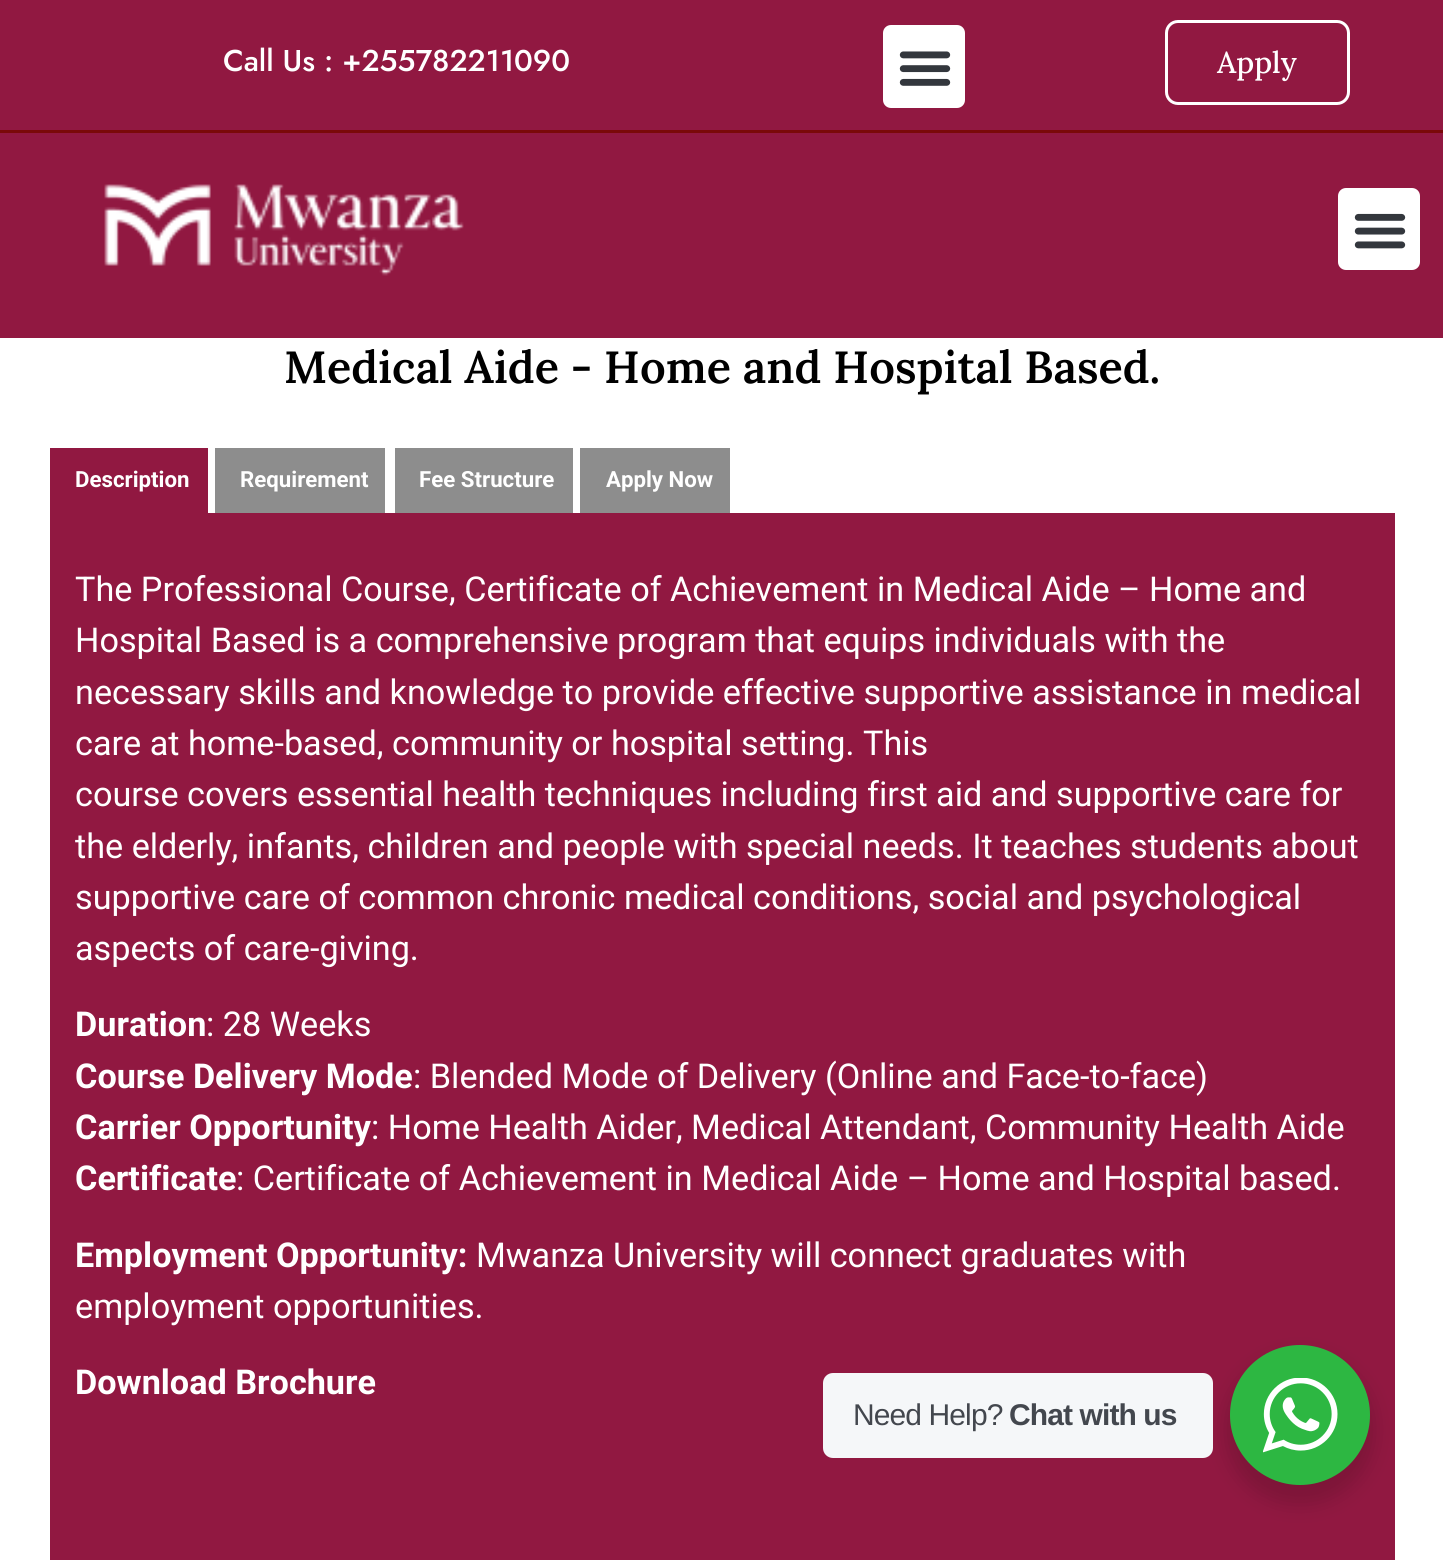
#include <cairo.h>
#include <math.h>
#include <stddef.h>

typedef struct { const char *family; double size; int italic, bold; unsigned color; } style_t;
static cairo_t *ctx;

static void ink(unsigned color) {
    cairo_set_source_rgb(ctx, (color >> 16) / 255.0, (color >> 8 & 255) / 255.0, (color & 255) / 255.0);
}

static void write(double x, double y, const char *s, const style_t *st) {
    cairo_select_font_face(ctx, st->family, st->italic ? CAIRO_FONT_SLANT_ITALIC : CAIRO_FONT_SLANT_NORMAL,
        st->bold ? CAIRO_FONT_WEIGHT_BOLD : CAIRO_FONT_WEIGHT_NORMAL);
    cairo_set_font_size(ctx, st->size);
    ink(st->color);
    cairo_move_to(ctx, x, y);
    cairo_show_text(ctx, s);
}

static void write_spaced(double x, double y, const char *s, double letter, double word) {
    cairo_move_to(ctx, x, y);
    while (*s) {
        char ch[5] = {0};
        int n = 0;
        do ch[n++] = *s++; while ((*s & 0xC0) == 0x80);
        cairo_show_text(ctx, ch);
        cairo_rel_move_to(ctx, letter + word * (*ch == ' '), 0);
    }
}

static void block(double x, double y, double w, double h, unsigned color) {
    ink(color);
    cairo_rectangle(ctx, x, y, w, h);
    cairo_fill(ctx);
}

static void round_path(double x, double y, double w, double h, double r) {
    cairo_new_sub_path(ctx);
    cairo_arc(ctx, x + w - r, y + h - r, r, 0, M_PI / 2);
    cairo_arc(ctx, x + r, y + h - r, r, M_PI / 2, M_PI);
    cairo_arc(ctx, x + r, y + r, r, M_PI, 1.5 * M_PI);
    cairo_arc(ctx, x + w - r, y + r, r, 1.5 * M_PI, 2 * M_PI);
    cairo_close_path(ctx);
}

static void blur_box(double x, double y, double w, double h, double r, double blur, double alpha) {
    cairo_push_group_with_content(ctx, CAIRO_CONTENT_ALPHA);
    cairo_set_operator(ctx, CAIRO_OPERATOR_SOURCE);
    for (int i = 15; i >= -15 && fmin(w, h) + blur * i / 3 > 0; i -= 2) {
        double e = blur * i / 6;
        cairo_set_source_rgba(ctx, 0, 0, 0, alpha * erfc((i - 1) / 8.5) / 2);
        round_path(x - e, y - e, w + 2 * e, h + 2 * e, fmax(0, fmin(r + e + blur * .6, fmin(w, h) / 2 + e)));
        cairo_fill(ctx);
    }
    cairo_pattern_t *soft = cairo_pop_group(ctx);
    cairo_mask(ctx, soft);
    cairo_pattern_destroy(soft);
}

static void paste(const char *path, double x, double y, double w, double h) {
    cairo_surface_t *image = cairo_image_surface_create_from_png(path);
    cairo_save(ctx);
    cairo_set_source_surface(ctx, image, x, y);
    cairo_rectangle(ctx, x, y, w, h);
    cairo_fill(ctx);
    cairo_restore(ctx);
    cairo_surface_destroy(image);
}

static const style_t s1 = {"Jost Medium", 30, 0, 0, 0xffffff};
static const style_t s2 = {"Lora Medium", 30, 0, 0, 0xffffff};
static const style_t s3 = {"Lora SemiBold", 45, 0, 0, 0x000000};
static const style_t s4 = {"Roboto", 22.25, 0, 1, 0xffffff};
static const style_t s5 = {"Roboto", 34.2, 0, 0, 0xffffff};
static const style_t s6 = {"Roboto", 34.2, 0, 1, 0xffffff};

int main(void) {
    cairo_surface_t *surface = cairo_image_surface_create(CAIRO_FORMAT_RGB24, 1443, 1560);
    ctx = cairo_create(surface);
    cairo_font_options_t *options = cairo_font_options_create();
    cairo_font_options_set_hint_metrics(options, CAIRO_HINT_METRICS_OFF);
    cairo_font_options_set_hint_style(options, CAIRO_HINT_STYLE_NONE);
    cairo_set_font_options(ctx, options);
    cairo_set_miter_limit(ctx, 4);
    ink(0xffffff);
    cairo_paint(ctx);
    block(0, 0, 1443, 338, 0x911841);
    write(223, 71, "Call Us : +255782211090", &s1);
    round_path(883, 25, 82, 83, 8);
    cairo_fill(ctx);
    paste("pic1.png", 899, 51, 52, 35);
    round_path(1166.5, 21.5, 182, 82, 11.5);
    cairo_set_line_width(ctx, 3);
    cairo_stroke(ctx);
    write(1217, 73, "Apply", &s2);
    block(0, 130, 1443, 3, 0x7a0909);
    paste("pic2.png", 104, 184, 360, 92);
    ink(0xffffff);
    round_path(1338, 188, 82, 82, 8);
    cairo_fill(ctx);
    paste("pic3.png", 1354, 213, 52, 36);
    write(284, 383, "Medical Aide - Home and Hospital Based.", &s3);
    block(50, 513, 1345, 1047, 0x911841);
    block(50, 448, 158, 65, 0x911841);
    write(75, 487, "Description", &s4);
    block(215, 448, 170, 65, 0x8d8d8d);
    write(240, 487, "Requirement", &s4);
    block(395, 448, 178, 65, 0x8d8d8d);
    write(419, 487, "Fee Structure", &s4);
    block(580, 448, 150, 65, 0x8d8d8d);
    write(606, 487, "Apply Now", &s4);
    write(75, 601, "The Professional Course, Certificate of Achievement in Medical Aide – Home and", &s5);
    write(75, 652, "Hospital Based is a comprehensive program that equips individuals with the", &s5);
    write(75, 704, "necessary skills and knowledge to provide effective supportive assistance in medical", &s5);
    write(75, 755, "care at home-based, community or hospital setting. This", &s5);
    write(75, 806, "course covers essential health techniques including first aid and supportive care for", &s5);
    write(75, 858, "the elderly, infants, children and people with special needs. It teaches students about", &s5);
    write(75, 909, "supportive care of common chronic medical conditions, social and psychological", &s5);
    write(75, 960, "aspects of care-giving.", &s5);
    write(75, 1036, "Duration", &s6);
    write(206, 1036, ": 28 Weeks", &s5);
    write(75, 1088, "Course Delivery Mode", &s6);
    write(413, 1088, ": Blended Mode of Delivery (Online and Face-to-face)", &s5);
    write(75, 1139, "Carrier Opportunity", &s6);
    write(371, 1139, ": Home Health Aider, Medical Attendant, Community Health Aide", &s5);
    write(75, 1190, "Certificate", &s6);
    write(236, 1190, ": Certificate of Achievement in Medical Aide – Home and Hospital based.", &s5);
    write(75, 1267, "Employment Opportunity:", &s6);
    write(476, 1267, "Mwanza University will connect graduates with", &s5);
    write(75, 1318, "employment opportunities.", &s5);
    write(75, 1394, "Download Brochure", &s6);
    ink(0x000000);
    blur_box(1225, 1355, 150, 150, 75, 10, 0.14);
    ink(0xf5f7f9);
    round_path(823, 1373, 390, 85, 10);
    cairo_fill(ctx);
    cairo_select_font_face(ctx, "Liberation Sans", CAIRO_FONT_SLANT_NORMAL, CAIRO_FONT_WEIGHT_NORMAL);
    cairo_set_font_size(ctx, 30);
    ink(0x43474e);
    write_spaced(853, 1425, "Need Help?", -0.9, 0);
    cairo_select_font_face(ctx, "Liberation Sans", CAIRO_FONT_SLANT_NORMAL, CAIRO_FONT_WEIGHT_BOLD);
    write_spaced(1009, 1425, "Chat with us", -0.9, 0);
    ink(0x2db742);
    cairo_new_path(ctx);
    cairo_arc(ctx, 1300, 1415, 70, 0, 2 * M_PI);
    cairo_fill(ctx);
    paste("pic4.png", 1263, 1378, 75, 75);
    cairo_surface_write_to_png(surface, "screenshot.png");
    cairo_font_options_destroy(options);
    cairo_destroy(ctx);
    cairo_surface_destroy(surface);
    return 0;
}
